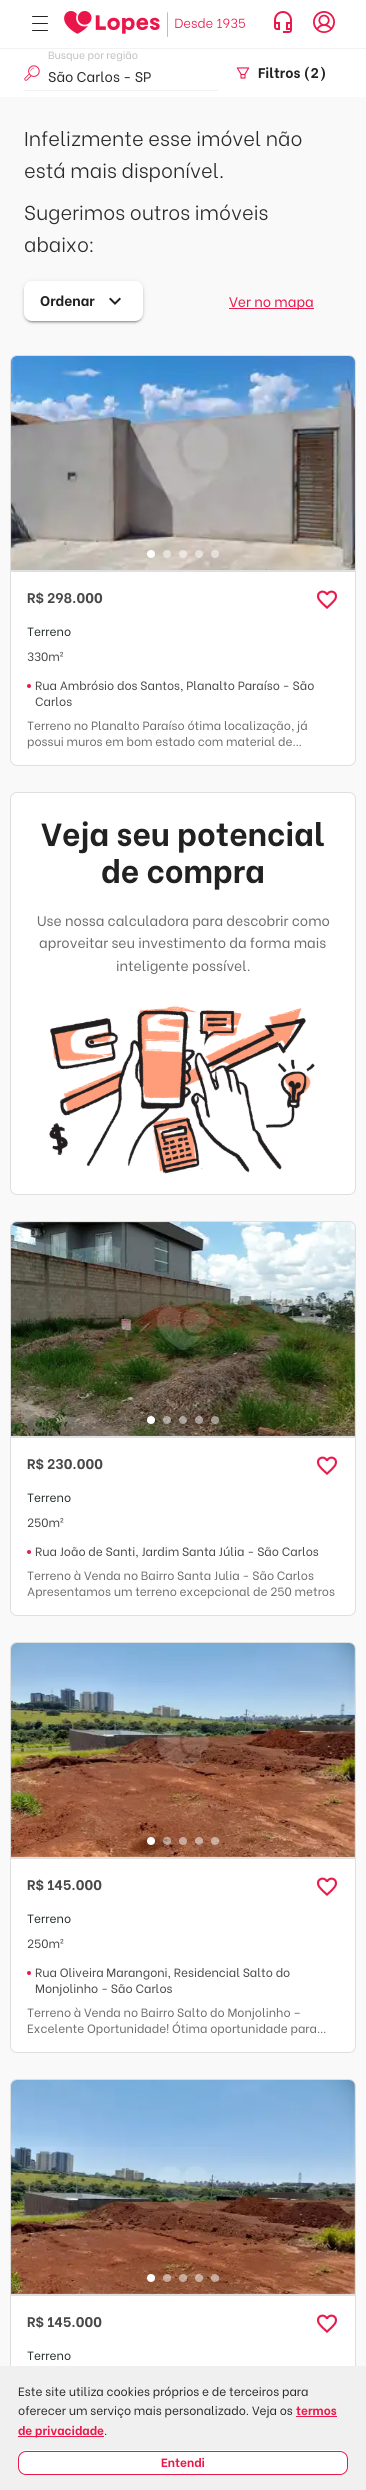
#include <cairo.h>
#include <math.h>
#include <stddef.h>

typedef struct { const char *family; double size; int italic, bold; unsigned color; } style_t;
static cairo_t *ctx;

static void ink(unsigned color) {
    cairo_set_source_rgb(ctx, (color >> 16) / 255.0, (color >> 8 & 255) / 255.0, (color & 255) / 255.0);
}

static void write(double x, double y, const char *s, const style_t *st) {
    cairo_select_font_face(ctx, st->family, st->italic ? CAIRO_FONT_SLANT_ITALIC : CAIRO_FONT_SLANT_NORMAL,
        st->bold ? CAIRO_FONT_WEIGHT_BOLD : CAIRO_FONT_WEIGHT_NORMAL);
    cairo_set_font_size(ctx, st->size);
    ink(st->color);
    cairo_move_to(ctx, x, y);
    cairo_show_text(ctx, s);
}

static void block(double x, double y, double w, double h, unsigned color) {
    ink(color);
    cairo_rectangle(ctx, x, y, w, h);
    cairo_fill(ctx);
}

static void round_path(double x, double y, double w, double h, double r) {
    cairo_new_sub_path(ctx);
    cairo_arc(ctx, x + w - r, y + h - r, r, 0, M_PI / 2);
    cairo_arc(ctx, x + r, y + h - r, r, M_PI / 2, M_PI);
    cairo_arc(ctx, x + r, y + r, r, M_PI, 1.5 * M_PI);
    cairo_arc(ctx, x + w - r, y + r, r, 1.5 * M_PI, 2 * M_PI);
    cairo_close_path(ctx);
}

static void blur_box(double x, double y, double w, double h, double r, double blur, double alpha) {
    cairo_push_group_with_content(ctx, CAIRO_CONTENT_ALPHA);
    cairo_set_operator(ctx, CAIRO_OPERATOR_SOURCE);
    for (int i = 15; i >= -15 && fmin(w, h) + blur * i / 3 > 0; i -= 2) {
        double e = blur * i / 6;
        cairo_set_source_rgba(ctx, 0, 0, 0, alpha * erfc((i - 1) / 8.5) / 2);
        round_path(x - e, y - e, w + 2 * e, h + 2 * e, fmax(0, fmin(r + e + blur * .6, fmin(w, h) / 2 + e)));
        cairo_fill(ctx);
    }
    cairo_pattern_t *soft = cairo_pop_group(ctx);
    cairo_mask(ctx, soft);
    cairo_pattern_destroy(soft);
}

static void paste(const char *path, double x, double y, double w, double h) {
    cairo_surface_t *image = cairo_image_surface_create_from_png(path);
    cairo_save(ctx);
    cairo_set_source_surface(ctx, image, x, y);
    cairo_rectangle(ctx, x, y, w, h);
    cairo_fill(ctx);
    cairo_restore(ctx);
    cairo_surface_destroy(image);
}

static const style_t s1 = {"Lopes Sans", 10.5, 0, 0, 0xbfbfbf};
static const style_t s2 = {"Lopes Sans", 14, 0, 0, 0x2a2a2a};
static const style_t s3 = {"Lopes Sans", 14, 0, 1, 0x212121};
static const style_t s4 = {"Lopes Sans Light", 20, 0, 0, 0x2a2a2a};
static const style_t s5 = {"Lopes Sans", 14, 0, 0, 0xeb194b};
static const style_t s6 = {"Lopes Sans", 14, 0, 1, 0x484848};
static const style_t s7 = {"Lopes Sans", 12, 0, 0, 0x242f2d};
static const style_t s8 = {"Lopes Sans", 12, 0, 0, 0x484848};
static const style_t s9 = {"Lopes Sans", 12, 0, 0, 0x6d6d6d};
static const style_t s10 = {"Lopes Sans", 32, 0, 1, 0x212121};
static const style_t s11 = {"Lopes Sans", 14, 0, 0, 0x6d6d6d};
static const style_t s12 = {"Lopes Sans", 12, 0, 0, 0x2a2a2a};
static const style_t s13 = {"Lopes Sans", 12, 0, 1, 0xeb194b};

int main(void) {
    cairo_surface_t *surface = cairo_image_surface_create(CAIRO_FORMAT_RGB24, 366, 2490);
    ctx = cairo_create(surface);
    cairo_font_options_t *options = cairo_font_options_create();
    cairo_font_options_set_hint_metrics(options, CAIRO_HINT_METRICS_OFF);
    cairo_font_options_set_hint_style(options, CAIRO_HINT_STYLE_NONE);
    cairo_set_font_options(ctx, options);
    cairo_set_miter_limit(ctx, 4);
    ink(0xffffff);
    cairo_paint(ctx);
    block(0, 48, 366, 1, 0xf2f2f2);
    paste("pic1.png", 32, 16, 16, 15);
    paste("pic2.png", 64, 11, 181, 26);
    paste("pic3.png", 274, 11, 18, 22);
    paste("pic4.png", 313, 11, 22, 22);
    paste("pic5.png", 24, 65, 16, 16);
    write(48, 59, "Busque por região", &s1);
    write(48, 82, "São Carlos - SP", &s2);
    block(24, 90, 194, 1, 0xf2f2f2);
    paste("pic6.png", 236, 67, 14, 12);
    write(258, 78, "Filtros (2)", &s3);
    block(0, 97, 366, 2269, 0xf9f9f9);
    write(24, 146, "Infelizmente esse imóvel não", &s4);
    write(24, 178, "está mais disponível.", &s4);
    write(24, 220, "Sugerimos outros imóveis", &s4);
    write(24, 252, "abaixo:", &s4);
    ink(0x000000);
    blur_box(24, 282, 119, 40, 8, 2.5, 0.12);
    blur_box(24, 283, 119, 40, 8, 1, 0.14);
    blur_box(26, 286, 115, 36, 6, 0.5, 0.2);
    ink(0xffffff);
    round_path(24, 281, 119, 40, 8);
    cairo_fill(ctx);
    write(40, 306, "Ordenar", &s3);
    paste("pic7.png", 109, 297, 12, 8);
    block(229, 308, 85, 1, 0xeb194b);
    write(229, 307, "Ver no mapa", &s5);
    ink(0xffffff);
    round_path(10.5, 355.5, 345, 410, 6.5);
    cairo_fill_preserve(ctx);
    ink(0xdfdfdf);
    cairo_set_line_width(ctx, 1);
    cairo_stroke(ctx);
    cairo_new_path(ctx);
    cairo_move_to(ctx, 17, 356);
    cairo_line_to(ctx, 349, 356);
    cairo_curve_to(ctx, 352.5, 356, 355, 358.5, 355, 362);
    cairo_line_to(ctx, 355, 572);
    cairo_line_to(ctx, 11, 572);
    cairo_line_to(ctx, 11, 362);
    cairo_curve_to(ctx, 11, 358.5, 13.5, 356, 17, 356);
    cairo_close_path(ctx);
    cairo_fill(ctx);
    paste("pic8.png", 11, 356, 344, 214);
    ink(0xffffff);
    cairo_arc(ctx, 151, 554, 4, 0, 2 * M_PI);
    cairo_fill(ctx);
    cairo_set_source_rgba(ctx, 1, 1, 1, 0.5);
    cairo_arc(ctx, 167, 554, 4, 0, 2 * M_PI);
    cairo_fill(ctx);
    cairo_arc(ctx, 183, 554, 4, 0, 2 * M_PI);
    cairo_fill(ctx);
    cairo_arc(ctx, 199, 554, 4, 0, 2 * M_PI);
    cairo_fill(ctx);
    cairo_arc(ctx, 215, 554, 4, 0, 2 * M_PI);
    cairo_fill(ctx);
    write(27, 603, "R$ 298.000", &s6);
    paste("pic9.png", 316, 590, 21, 19);
    write(27, 636, "Terreno", &s7);
    write(27, 661, "330m²", &s8);
    ink(0xeb194b);
    cairo_new_path(ctx);
    cairo_arc(ctx, 29, 686, 2, 0, 2 * M_PI);
    cairo_fill(ctx);
    write(35, 690, "Rua Ambrósio dos Santos, Planalto Paraíso - São", &s8);
    write(35, 706, "Carlos", &s8);
    write(27, 730, "Terreno no Planalto Paraíso ótima localização, já", &s9);
    write(27, 746, "possui muros em bom estado com material de…", &s9);
    ink(0xffffff);
    round_path(10.5, 792.5, 345, 402, 6.5);
    cairo_fill_preserve(ctx);
    ink(0xdfdfdf);
    cairo_stroke(ctx);
    write(41, 846, "Veja seu potencial", &s10);
    write(101, 883, "de compra", &s10);
    write(37, 926, "Use nossa calculadora para descobrir como", &s11);
    write(39, 948, "aproveitar seu investimento da forma mais", &s11);
    write(116, 971, "inteligente possível.", &s11);
    paste("pic10.png", 49, 1006, 266, 168);
    ink(0xffffff);
    round_path(10.5, 1221.5, 345, 394, 6.5);
    cairo_fill_preserve(ctx);
    ink(0xdfdfdf);
    cairo_stroke(ctx);
    cairo_new_path(ctx);
    cairo_move_to(ctx, 17, 1222);
    cairo_line_to(ctx, 349, 1222);
    cairo_curve_to(ctx, 352.5, 1222, 355, 1224.5, 355, 1228);
    cairo_line_to(ctx, 355, 1438);
    cairo_line_to(ctx, 11, 1438);
    cairo_line_to(ctx, 11, 1228);
    cairo_curve_to(ctx, 11, 1224.5, 13.5, 1222, 17, 1222);
    cairo_close_path(ctx);
    cairo_fill(ctx);
    cairo_new_path(ctx);
    cairo_move_to(ctx, 17, 1222);
    cairo_line_to(ctx, 349, 1222);
    cairo_curve_to(ctx, 352.5, 1222, 355, 1224.5, 355, 1228);
    cairo_line_to(ctx, 355, 1436);
    cairo_line_to(ctx, 11, 1436);
    cairo_line_to(ctx, 11, 1228);
    cairo_curve_to(ctx, 11, 1224.5, 13.5, 1222, 17, 1222);
    cairo_close_path(ctx);
    cairo_fill(ctx);
    paste("pic11.png", 11, 1222, 344, 214);
    ink(0xffffff);
    cairo_arc(ctx, 151, 1420, 4, 0, 2 * M_PI);
    cairo_fill(ctx);
    cairo_set_source_rgba(ctx, 1, 1, 1, 0.5);
    cairo_arc(ctx, 167, 1420, 4, 0, 2 * M_PI);
    cairo_fill(ctx);
    cairo_arc(ctx, 183, 1420, 4, 0, 2 * M_PI);
    cairo_fill(ctx);
    cairo_arc(ctx, 199, 1420, 4, 0, 2 * M_PI);
    cairo_fill(ctx);
    cairo_arc(ctx, 215, 1420, 4, 0, 2 * M_PI);
    cairo_fill(ctx);
    write(27, 1469, "R$ 230.000", &s6);
    paste("pic9.png", 316, 1456, 21, 19);
    write(27, 1502, "Terreno", &s7);
    write(27, 1527, "250m²", &s8);
    ink(0xeb194b);
    cairo_new_path(ctx);
    cairo_arc(ctx, 29, 1552, 2, 0, 2 * M_PI);
    cairo_fill(ctx);
    write(35, 1556, "Rua João de Santi, Jardim Santa Júlia - São Carlos", &s8);
    write(27, 1580, "Terreno à Venda no Bairro Santa Julia - São Carlos", &s9);
    write(27, 1596, "Apresentamos um terreno excepcional de 250 metros", &s9);
    ink(0xffffff);
    round_path(10.5, 1642.5, 345, 410, 6.5);
    cairo_fill_preserve(ctx);
    ink(0xdfdfdf);
    cairo_stroke(ctx);
    cairo_new_path(ctx);
    cairo_move_to(ctx, 17, 1643);
    cairo_line_to(ctx, 349, 1643);
    cairo_curve_to(ctx, 352.5, 1643, 355, 1645.5, 355, 1649);
    cairo_line_to(ctx, 355, 1859);
    cairo_line_to(ctx, 11, 1859);
    cairo_line_to(ctx, 11, 1649);
    cairo_curve_to(ctx, 11, 1645.5, 13.5, 1643, 17, 1643);
    cairo_close_path(ctx);
    cairo_fill(ctx);
    cairo_new_path(ctx);
    cairo_move_to(ctx, 17, 1643);
    cairo_line_to(ctx, 349, 1643);
    cairo_curve_to(ctx, 352.5, 1643, 355, 1645.5, 355, 1649);
    cairo_line_to(ctx, 355, 1857);
    cairo_line_to(ctx, 11, 1857);
    cairo_line_to(ctx, 11, 1649);
    cairo_curve_to(ctx, 11, 1645.5, 13.5, 1643, 17, 1643);
    cairo_close_path(ctx);
    cairo_fill(ctx);
    paste("pic12.png", 11, 1643, 344, 214);
    ink(0xffffff);
    cairo_arc(ctx, 151, 1841, 4, 0, 2 * M_PI);
    cairo_fill(ctx);
    cairo_set_source_rgba(ctx, 1, 1, 1, 0.5);
    cairo_arc(ctx, 167, 1841, 4, 0, 2 * M_PI);
    cairo_fill(ctx);
    cairo_arc(ctx, 183, 1841, 4, 0, 2 * M_PI);
    cairo_fill(ctx);
    cairo_arc(ctx, 199, 1841, 4, 0, 2 * M_PI);
    cairo_fill(ctx);
    cairo_arc(ctx, 215, 1841, 4, 0, 2 * M_PI);
    cairo_fill(ctx);
    write(27, 1890, "R$ 145.000", &s6);
    paste("pic9.png", 316, 1877, 21, 19);
    write(27, 1923, "Terreno", &s7);
    write(27, 1948, "250m²", &s8);
    ink(0xeb194b);
    cairo_new_path(ctx);
    cairo_arc(ctx, 29, 1973, 2, 0, 2 * M_PI);
    cairo_fill(ctx);
    write(35, 1977, "Rua Oliveira Marangoni, Residencial Salto do", &s8);
    write(35, 1993, "Monjolinho - São Carlos", &s8);
    write(27, 2017, "Terreno à Venda no Bairro Salto do Monjolinho –", &s9);
    write(27, 2033, "Excelente Oportunidade! Ótima oportunidade para…", &s9);
    ink(0xffffff);
    round_path(10.5, 2079.5, 345, 410, 6.5);
    cairo_fill_preserve(ctx);
    ink(0xdfdfdf);
    cairo_stroke(ctx);
    cairo_new_path(ctx);
    cairo_move_to(ctx, 17, 2080);
    cairo_line_to(ctx, 349, 2080);
    cairo_curve_to(ctx, 352.5, 2080, 355, 2082.5, 355, 2086);
    cairo_line_to(ctx, 355, 2296);
    cairo_line_to(ctx, 11, 2296);
    cairo_line_to(ctx, 11, 2086);
    cairo_curve_to(ctx, 11, 2082.5, 13.5, 2080, 17, 2080);
    cairo_close_path(ctx);
    cairo_fill(ctx);
    cairo_new_path(ctx);
    cairo_move_to(ctx, 17, 2080);
    cairo_line_to(ctx, 349, 2080);
    cairo_curve_to(ctx, 352.5, 2080, 355, 2082.5, 355, 2086);
    cairo_line_to(ctx, 355, 2294);
    cairo_line_to(ctx, 11, 2294);
    cairo_line_to(ctx, 11, 2086);
    cairo_curve_to(ctx, 11, 2082.5, 13.5, 2080, 17, 2080);
    cairo_close_path(ctx);
    cairo_fill(ctx);
    paste("pic13.png", 11, 2080, 344, 214);
    ink(0xffffff);
    cairo_arc(ctx, 151, 2278, 4, 0, 2 * M_PI);
    cairo_fill(ctx);
    cairo_set_source_rgba(ctx, 1, 1, 1, 0.5);
    cairo_arc(ctx, 167, 2278, 4, 0, 2 * M_PI);
    cairo_fill(ctx);
    cairo_arc(ctx, 183, 2278, 4, 0, 2 * M_PI);
    cairo_fill(ctx);
    cairo_arc(ctx, 199, 2278, 4, 0, 2 * M_PI);
    cairo_fill(ctx);
    cairo_arc(ctx, 215, 2278, 4, 0, 2 * M_PI);
    cairo_fill(ctx);
    write(27, 2327, "R$ 145.000", &s6);
    paste("pic9.png", 316, 2314, 21, 19);
    write(27, 2360, "Terreno", &s7);
    block(0, 2366, 366, 124, 0xf0f0f0);
    write(18, 2396, "Este site utiliza cookies próprios e de terceiros para", &s12);
    write(18, 2415, "oferecer um serviço mais personalizado. Veja os", &s12);
    write(296, 2415, "termos", &s13);
    block(296, 2416, 41, 1, 0xeb194b);
    block(18, 2436, 86, 1, 0xeb194b);
    write(18, 2435, "de privacidade", &s13);
    write(104, 2435, ".", &s12);
    ink(0xffffff);
    round_path(18, 2450, 330, 25, 8);
    cairo_fill(ctx);
    round_path(18.5, 2451.5, 329, 23, 7.5);
    ink(0xeb194b);
    cairo_stroke(ctx);
    write(161, 2467, "Entendi", &s13);
    cairo_surface_write_to_png(surface, "screenshot.png");
    cairo_font_options_destroy(options);
    cairo_destroy(ctx);
    cairo_surface_destroy(surface);
    return 0;
}
